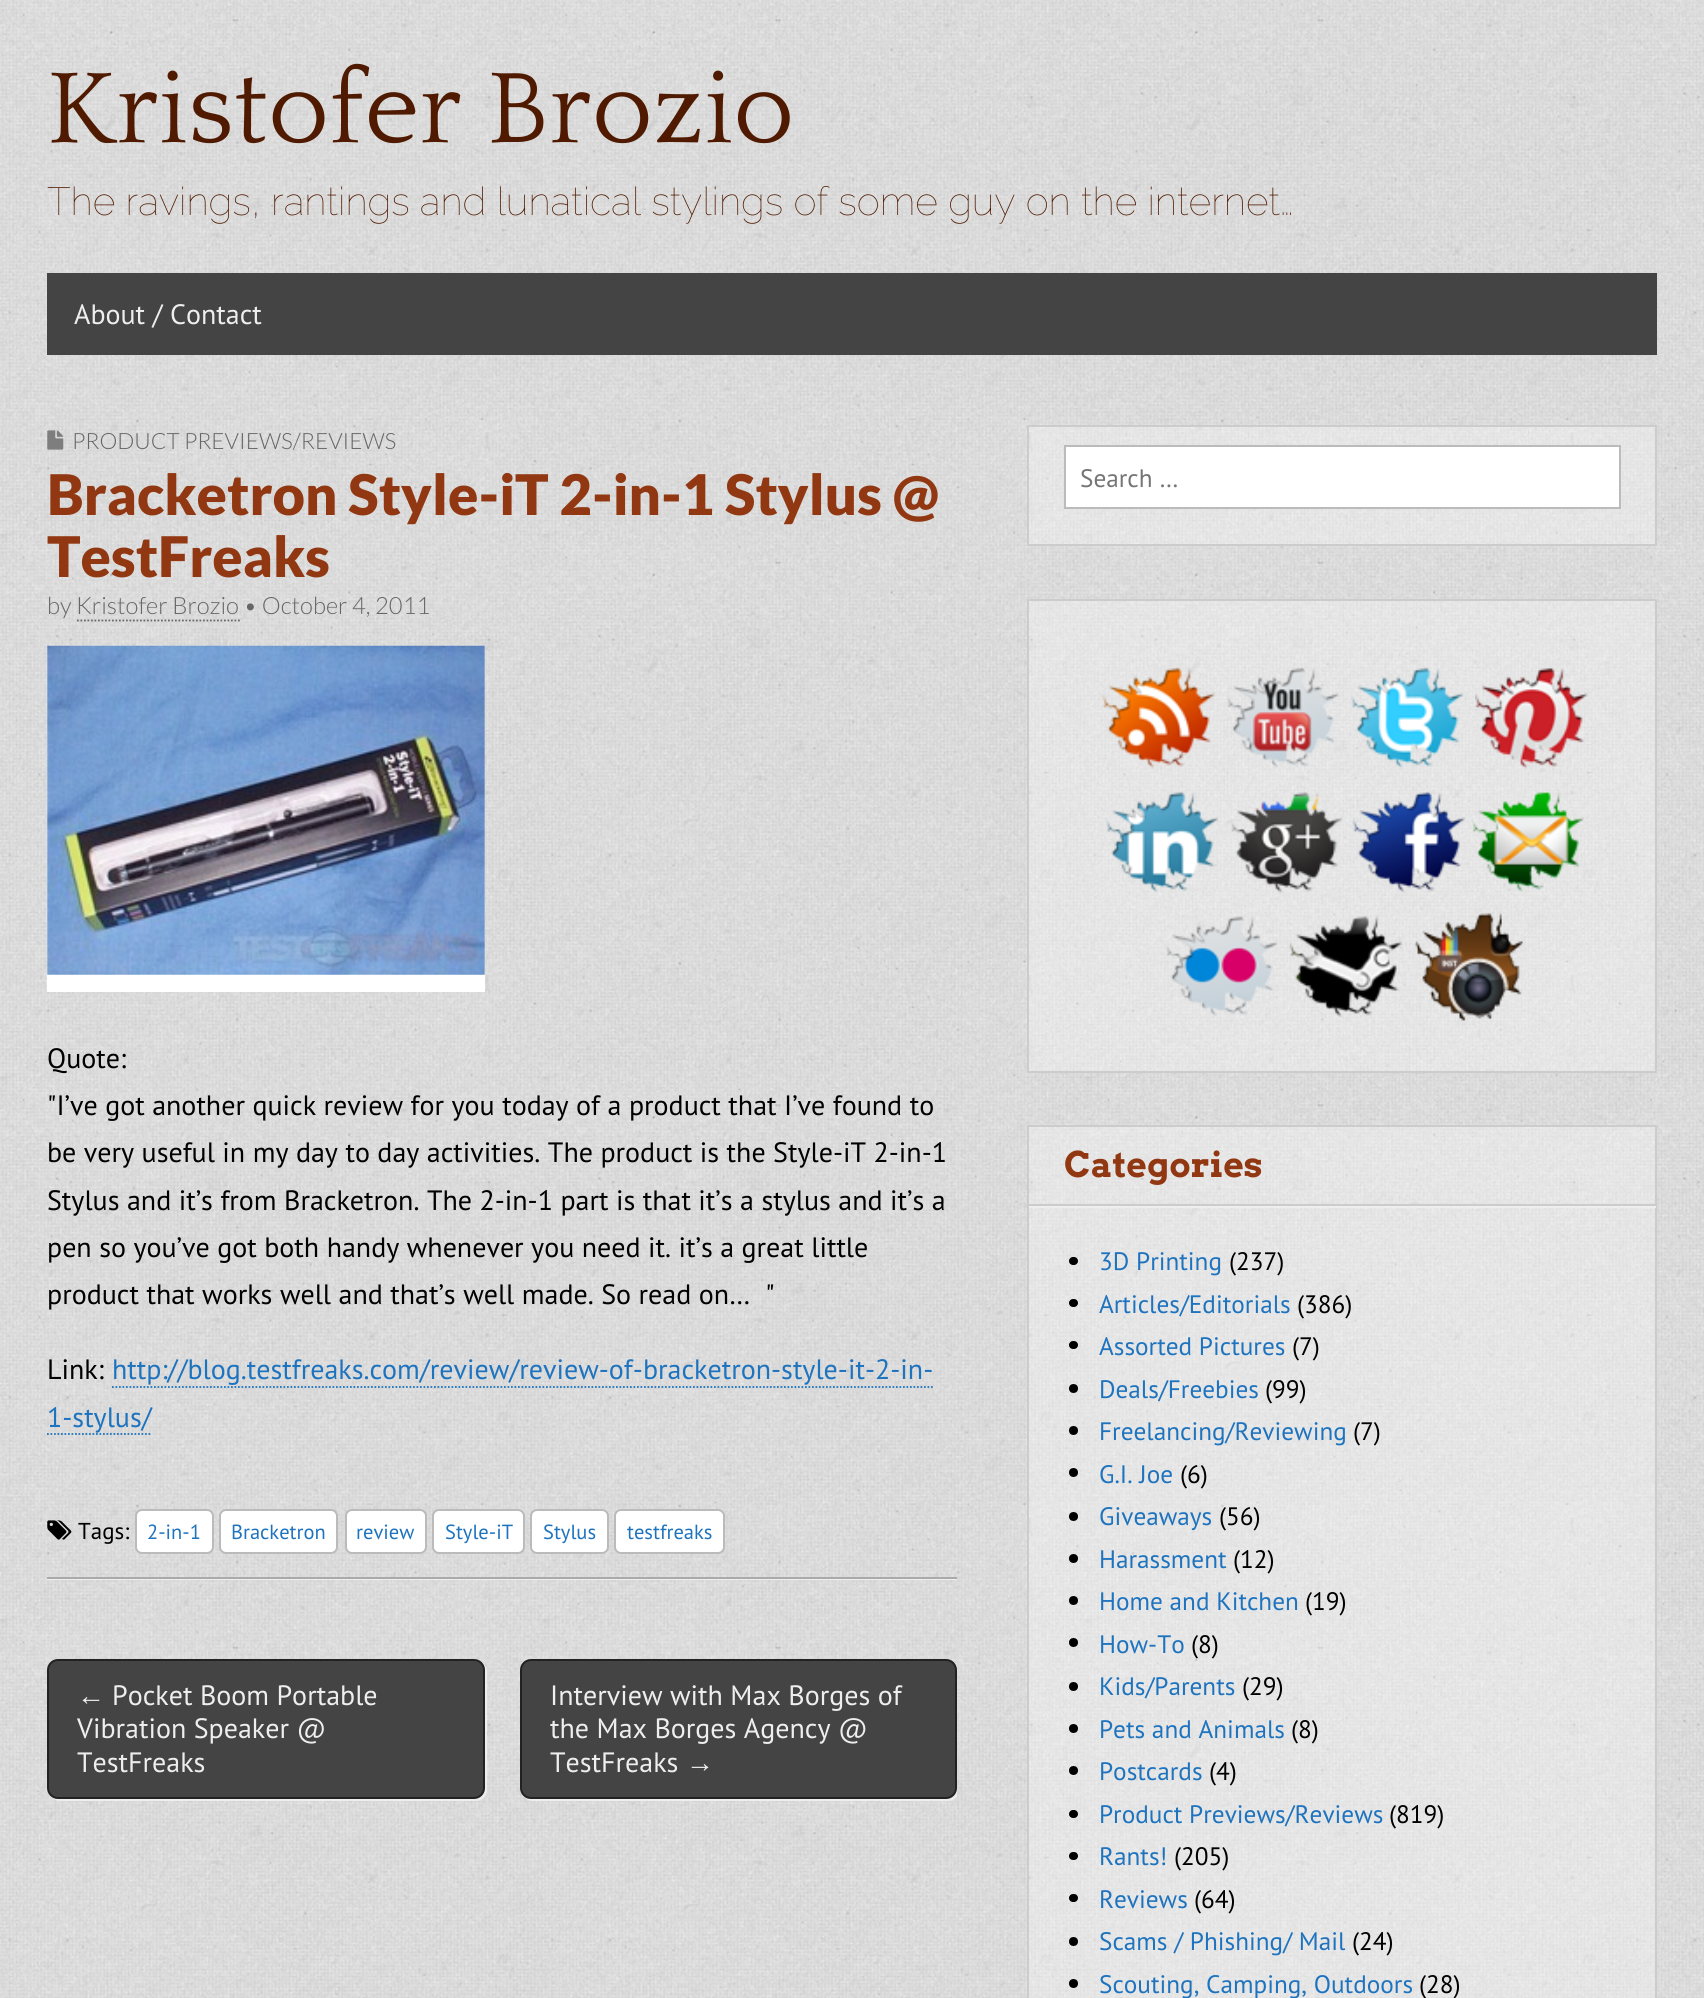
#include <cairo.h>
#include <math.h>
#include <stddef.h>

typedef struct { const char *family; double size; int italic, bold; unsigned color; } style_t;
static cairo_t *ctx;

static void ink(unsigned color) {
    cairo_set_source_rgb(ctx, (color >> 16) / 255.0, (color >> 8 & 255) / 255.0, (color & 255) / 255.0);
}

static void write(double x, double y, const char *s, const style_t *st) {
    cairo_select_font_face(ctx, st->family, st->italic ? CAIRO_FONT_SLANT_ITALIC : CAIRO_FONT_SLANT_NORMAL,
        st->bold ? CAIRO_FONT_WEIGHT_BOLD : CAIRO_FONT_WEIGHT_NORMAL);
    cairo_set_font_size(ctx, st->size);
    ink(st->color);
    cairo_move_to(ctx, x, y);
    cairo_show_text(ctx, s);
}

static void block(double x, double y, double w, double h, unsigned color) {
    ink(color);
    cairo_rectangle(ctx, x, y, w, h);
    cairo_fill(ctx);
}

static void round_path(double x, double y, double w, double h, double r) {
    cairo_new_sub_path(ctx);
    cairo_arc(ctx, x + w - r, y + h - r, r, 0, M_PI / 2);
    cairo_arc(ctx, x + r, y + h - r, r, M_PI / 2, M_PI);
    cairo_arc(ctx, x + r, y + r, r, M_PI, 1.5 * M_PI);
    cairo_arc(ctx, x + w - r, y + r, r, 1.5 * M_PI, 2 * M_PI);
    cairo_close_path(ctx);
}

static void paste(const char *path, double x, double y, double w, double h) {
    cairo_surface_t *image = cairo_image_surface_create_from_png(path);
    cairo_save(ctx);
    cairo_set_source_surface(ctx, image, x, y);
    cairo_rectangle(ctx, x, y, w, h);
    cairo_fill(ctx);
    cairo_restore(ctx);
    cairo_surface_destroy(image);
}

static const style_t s1 = {"Quattrocento", 105, 0, 0, 0x4f1a00};
static const style_t s2 = {"Raleway Thin", 39.2, 0, 0, 0x4f1a00};
static const style_t s3 = {"PT Sans", 28, 0, 0, 0xeeeeee};
static const style_t s4 = {"Lato Light", 22.4, 0, 0, 0x666666};
static const style_t s5 = {"Lato Black", 56, 0, 0, 0x913812};
static const style_t s6 = {"Lato Light", 23.75, 0, 0, 0x666666};
static const style_t s7 = {"PT Sans", 28, 0, 0, 0x000000};
static const style_t s8 = {"PT Sans", 28, 0, 0, 0x1e73be};
static const style_t s9 = {"PT Sans", 23, 0, 0, 0x000000};
static const style_t s10 = {"PT Sans", 20.5, 0, 0, 0x1e73be};
static const style_t s11 = {"Liberation Sans", 28, 0, 0, 0xeeeeee};
static const style_t s12 = {"PT Sans", 25.25, 0, 0, 0x757575};
static const style_t s13 = {"Arvo", 35.25, 0, 1, 0x913812};
static const style_t s14 = {"PT Sans", 25.25, 0, 0, 0x1e73be};
static const style_t s15 = {"PT Sans", 25.25, 0, 0, 0x000000};

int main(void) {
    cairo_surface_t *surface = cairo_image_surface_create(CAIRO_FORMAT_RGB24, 1704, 1998);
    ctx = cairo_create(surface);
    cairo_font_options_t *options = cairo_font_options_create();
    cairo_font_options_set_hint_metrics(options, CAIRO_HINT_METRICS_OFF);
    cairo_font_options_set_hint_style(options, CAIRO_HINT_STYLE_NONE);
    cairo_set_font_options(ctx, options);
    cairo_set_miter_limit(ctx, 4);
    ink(0xffffff);
    cairo_paint(ctx);
    paste("pic1.png", 0, 0, 1704, 1998);
    write(47, 142, "Kristofer Brozio", &s1);
    write(47, 215, "The ravings, rantings and lunatical stylings of some guy on the internet…", &s2);
    block(47, 273, 1610, 82, 0x444444);
    write(74, 324, "About / Contact", &s3);
    cairo_new_path(ctx);
    cairo_move_to(ctx, 47, 427);
    cairo_line_to(ctx, 47, 1580);
    cairo_line_to(ctx, 957, 1580);
    cairo_line_to(ctx, 957, 1578);
    cairo_line_to(ctx, 47, 1578);
    cairo_close_path(ctx);
    cairo_fill(ctx);
    block(47, 1577, 910, 2, 0xaaaaaa);
    paste("pic2.png", 47, 430, 17, 20);
    write(72, 449, "PRODUCT PREVIEWS/REVIEWS", &s4);
    write(47, 515, "Bracketron Style-iT 2-in-1 Stylus @", &s5);
    write(47, 577, "TestFreaks", &s5);
    write(47, 614, "by Kristofer Brozio • October 4, 2011", &s6);
    cairo_new_path(ctx);
    cairo_move_to(ctx, 77, 620.5);
    cairo_line_to(ctx, 240, 620.5);
    cairo_set_line_width(ctx, 1.8);
    cairo_set_dash(ctx, (double[]){1.75, 1.75}, 2, 0);
    cairo_stroke(ctx);
    block(47, 646, 438, 346, 0xffffff);
    paste("pic3.png", 47, 645, 438, 330);
    write(47, 1068, "Quote:", &s7);
    write(47, 1115, "\"I’ve got another quick review for you today of a product that I’ve found to", &s7);
    write(47, 1162, "be very useful in my day to day activities. The product is the Style-iT 2-in-1", &s7);
    write(47, 1210, "Stylus and it’s from Bracketron. The 2-in-1 part is that it’s a stylus and it’s a", &s7);
    write(47, 1257, "pen so you’ve got both handy whenever you need it. it’s a great little", &s7);
    write(47, 1304, "product that works well and that’s well made. So read on…  \"", &s7);
    write(47, 1379, "Link:", &s7);
    write(112, 1379, "http://blog.testfreaks.com/review/review-of-bracketron-style-it-2-in-", &s8);
    cairo_new_path(ctx);
    cairo_move_to(ctx, 112, 1387);
    cairo_line_to(ctx, 933, 1387);
    cairo_stroke(ctx);
    write(47, 1427, "1-stylus/", &s8);
    cairo_new_path(ctx);
    cairo_move_to(ctx, 47, 1434);
    cairo_line_to(ctx, 152, 1434);
    cairo_stroke(ctx);
    paste("pic4.png", 47, 1520, 25, 20);
    write(78, 1539, "Tags:", &s9);
    ink(0xffffff);
    round_path(136, 1510, 77, 43, 6);
    cairo_fill_preserve(ctx);
    ink(0xbbbbbb);
    cairo_set_line_width(ctx, 2);
    cairo_set_dash(ctx, NULL, 0, 0);
    cairo_stroke(ctx);
    write(147, 1539, "2-in-1", &s10);
    ink(0xffffff);
    round_path(220, 1510, 117, 43, 6);
    cairo_fill_preserve(ctx);
    ink(0xbbbbbb);
    cairo_stroke(ctx);
    write(231, 1539, "Bracketron", &s10);
    ink(0xffffff);
    round_path(346, 1510, 80, 43, 6);
    cairo_fill_preserve(ctx);
    ink(0xbbbbbb);
    cairo_stroke(ctx);
    write(356, 1539, "review", &s10);
    ink(0xffffff);
    round_path(433, 1510, 91, 43, 6);
    cairo_fill_preserve(ctx);
    ink(0xbbbbbb);
    cairo_stroke(ctx);
    write(445, 1539, "Style-iT", &s10);
    ink(0xffffff);
    round_path(531, 1510, 77, 43, 6);
    cairo_fill_preserve(ctx);
    ink(0xbbbbbb);
    cairo_stroke(ctx);
    write(543, 1539, "Stylus", &s10);
    ink(0xffffff);
    round_path(615, 1510, 109, 43, 6);
    cairo_fill_preserve(ctx);
    ink(0xbbbbbb);
    cairo_stroke(ctx);
    write(627, 1539, "testfreaks", &s10);
    ink(0xeeeeee);
    cairo_new_path(ctx);
    cairo_move_to(ctx, 51, 1797);
    cairo_curve_to(ctx, 53, 1799, 57, 1801, 60, 1801);
    cairo_line_to(ctx, 476, 1801);
    cairo_curve_to(ctx, 482, 1801, 487, 1796, 487, 1790);
    cairo_line_to(ctx, 487, 1672);
    cairo_curve_to(ctx, 487, 1668, 485, 1665, 483, 1663);
    cairo_curve_to(ctx, 484, 1665, 485, 1667, 485, 1670);
    cairo_line_to(ctx, 485, 1788);
    cairo_curve_to(ctx, 485, 1794, 480, 1799, 474, 1799);
    cairo_line_to(ctx, 58, 1799);
    cairo_curve_to(ctx, 55, 1799, 53, 1798, 51, 1797);
    cairo_close_path(ctx);
    cairo_fill(ctx);
    ink(0x444444);
    round_path(48, 1660, 436, 138, 10);
    cairo_fill_preserve(ctx);
    ink(0x222222);
    cairo_stroke(ctx);
    write(77, 1705, "←", &s11);
    write(112, 1705, "Pocket Boom Portable", &s3);
    write(77, 1738, "Vibration Speaker @", &s3);
    write(77, 1772, "TestFreaks", &s3);
    cairo_save(ctx);
    cairo_rectangle(ctx, 47, 1631, 910, 196);
    cairo_clip(ctx);
    cairo_new_path(ctx);
    cairo_move_to(ctx, 525, 1798);
    cairo_curve_to(ctx, 527, 1800, 530, 1801, 533, 1801);
    cairo_line_to(ctx, 948, 1801);
    cairo_curve_to(ctx, 954, 1801, 959, 1796, 959, 1790);
    cairo_line_to(ctx, 959, 1672);
    cairo_curve_to(ctx, 959, 1669, 958, 1666, 956, 1664);
    cairo_curve_to(ctx, 957, 1666, 957, 1668, 957, 1670);
    cairo_line_to(ctx, 957, 1788);
    cairo_curve_to(ctx, 957, 1794, 953, 1799, 947, 1799);
    cairo_line_to(ctx, 530, 1799);
    cairo_curve_to(ctx, 528, 1799, 527, 1799, 525, 1798);
    cairo_close_path(ctx);
    cairo_fill(ctx);
    cairo_restore(ctx);
    ink(0x444444);
    round_path(521, 1660, 435, 138, 10);
    cairo_fill_preserve(ctx);
    ink(0x222222);
    cairo_stroke(ctx);
    write(550, 1705, "Interview with Max Borges of", &s3);
    write(550, 1738, "the Max Borges Agency @", &s3);
    write(550, 1772, "TestFreaks", &s3);
    write(686, 1772, "→", &s11);
    cairo_set_source_rgba(ctx, 1, 1, 1, 0.3);
    cairo_rectangle(ctx, 1028, 426, 628, 119);
    cairo_fill_preserve(ctx);
    ink(0xcccccc);
    cairo_stroke(ctx);
    ink(0xffffff);
    cairo_rectangle(ctx, 1065, 446, 555, 62);
    cairo_fill_preserve(ctx);
    ink(0xbbbbbb);
    cairo_stroke(ctx);
    write(1080, 487, "Search …", &s12);
    cairo_set_source_rgba(ctx, 1, 1, 1, 0.3);
    cairo_rectangle(ctx, 1028, 600, 628, 472);
    cairo_fill_preserve(ctx);
    ink(0xcccccc);
    cairo_stroke(ctx);
    paste("pic5.png", 1102, 666, 113, 103);
    paste("pic6.png", 1227, 667, 112, 101);
    paste("pic7.png", 1351, 667, 112, 102);
    paste("pic8.png", 1475, 668, 113, 101);
    paste("pic9.png", 1106, 791, 112, 102);
    paste("pic10.png", 1230, 791, 113, 102);
    paste("pic11.png", 1352, 791, 113, 102);
    paste("pic12.png", 1471, 792, 113, 101);
    paste("pic13.png", 1165, 915, 113, 102);
    paste("pic14.png", 1289, 915, 113, 102);
    paste("pic15.png", 1415, 913, 108, 108);
    cairo_set_source_rgba(ctx, 1, 1, 1, 0.3);
    cairo_rectangle(ctx, 1028, 1126, 628, 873);
    cairo_fill_preserve(ctx);
    ink(0xcccccc);
    cairo_stroke(ctx);
    ink(0xeeeeee);
    cairo_new_path(ctx);
    cairo_move_to(ctx, 1029, 1206);
    cairo_line_to(ctx, 1029, 1208);
    cairo_line_to(ctx, 1656, 1208);
    cairo_line_to(ctx, 1656, 1146);
    cairo_line_to(ctx, 1656, 1206);
    cairo_close_path(ctx);
    cairo_fill(ctx);
    block(1029, 1204, 627, 2, 0xcccccc);
    write(1064, 1177, "Categories", &s13);
    ink(0x000000);
    round_path(1069, 1257, 9, 8, 4);
    cairo_fill(ctx);
    write(1099, 1270, "3D Printing", &s14);
    write(1229, 1270, "(237)", &s15);
    round_path(1069, 1299, 9, 8, 4);
    cairo_fill(ctx);
    write(1099, 1313, "Articles/Editorials", &s14);
    write(1297, 1313, "(386)", &s15);
    round_path(1069, 1341, 9, 8, 4);
    cairo_fill(ctx);
    write(1099, 1355, "Assorted Pictures", &s14);
    write(1292, 1355, "(7)", &s15);
    cairo_new_path(ctx);
    cairo_arc(ctx, 1073.5, 1388.5, 4.5, 0, 2 * M_PI);
    cairo_fill(ctx);
    write(1099, 1398, "Deals/Freebies", &s14);
    write(1265, 1398, "(99)", &s15);
    cairo_new_path(ctx);
    cairo_arc(ctx, 1073.5, 1430.5, 4.5, 0, 2 * M_PI);
    cairo_fill(ctx);
    write(1099, 1440, "Freelancing/Reviewing", &s14);
    write(1353, 1440, "(7)", &s15);
    cairo_new_path(ctx);
    cairo_arc(ctx, 1073.5, 1472.5, 4.5, 0, 2 * M_PI);
    cairo_fill(ctx);
    write(1099, 1483, "G.I. Joe", &s14);
    write(1180, 1483, "(6)", &s15);
    cairo_new_path(ctx);
    cairo_arc(ctx, 1073.5, 1516.5, 4.5, 0, 2 * M_PI);
    cairo_fill(ctx);
    write(1099, 1525, "Giveaways", &s14);
    write(1219, 1525, "(56)", &s15);
    cairo_new_path(ctx);
    cairo_arc(ctx, 1073.5, 1558.5, 4.5, 0, 2 * M_PI);
    cairo_fill(ctx);
    write(1099, 1568, "Harassment", &s14);
    write(1233, 1568, "(12)", &s15);
    cairo_new_path(ctx);
    cairo_arc(ctx, 1073.5, 1600.5, 4.5, 0, 2 * M_PI);
    cairo_fill(ctx);
    write(1099, 1610, "Home and Kitchen", &s14);
    write(1305, 1610, "(19)", &s15);
    cairo_new_path(ctx);
    cairo_arc(ctx, 1073.5, 1642.5, 4.5, 0, 2 * M_PI);
    cairo_fill(ctx);
    write(1099, 1653, "How-To", &s14);
    write(1191, 1653, "(8)", &s15);
    cairo_new_path(ctx);
    cairo_arc(ctx, 1073.5, 1686.5, 4.5, 0, 2 * M_PI);
    cairo_fill(ctx);
    write(1099, 1695, "Kids/Parents", &s14);
    write(1242, 1695, "(29)", &s15);
    cairo_new_path(ctx);
    cairo_arc(ctx, 1073.5, 1728.5, 4.5, 0, 2 * M_PI);
    cairo_fill(ctx);
    write(1099, 1738, "Pets and Animals", &s14);
    write(1291, 1738, "(8)", &s15);
    cairo_new_path(ctx);
    cairo_arc(ctx, 1073.5, 1770.5, 4.5, 0, 2 * M_PI);
    cairo_fill(ctx);
    write(1099, 1780, "Postcards", &s14);
    write(1209, 1780, "(4)", &s15);
    round_path(1069, 1810, 9, 8, 4);
    cairo_fill(ctx);
    write(1099, 1823, "Product Previews/Reviews", &s14);
    write(1389, 1823, "(819)", &s15);
    round_path(1069, 1852, 9, 8, 4);
    cairo_fill(ctx);
    write(1099, 1865, "Rants!", &s14);
    write(1174, 1865, "(205)", &s15);
    round_path(1069, 1894, 9, 8, 4);
    cairo_fill(ctx);
    write(1099, 1908, "Reviews", &s14);
    write(1194, 1908, "(64)", &s15);
    cairo_new_path(ctx);
    cairo_arc(ctx, 1073.5, 1941.5, 4.5, 0, 2 * M_PI);
    cairo_fill(ctx);
    write(1099, 1950, "Scams / Phishing/ Mail", &s14);
    write(1352, 1950, "(24)", &s15);
    cairo_new_path(ctx);
    cairo_arc(ctx, 1073.5, 1983.5, 4.5, 0, 2 * M_PI);
    cairo_fill(ctx);
    write(1099, 1993, "Scouting, Camping, Outdoors", &s14);
    write(1419, 1993, "(28)", &s15);
    cairo_surface_write_to_png(surface, "screenshot.png");
    cairo_font_options_destroy(options);
    cairo_destroy(ctx);
    cairo_surface_destroy(surface);
    return 0;
}
